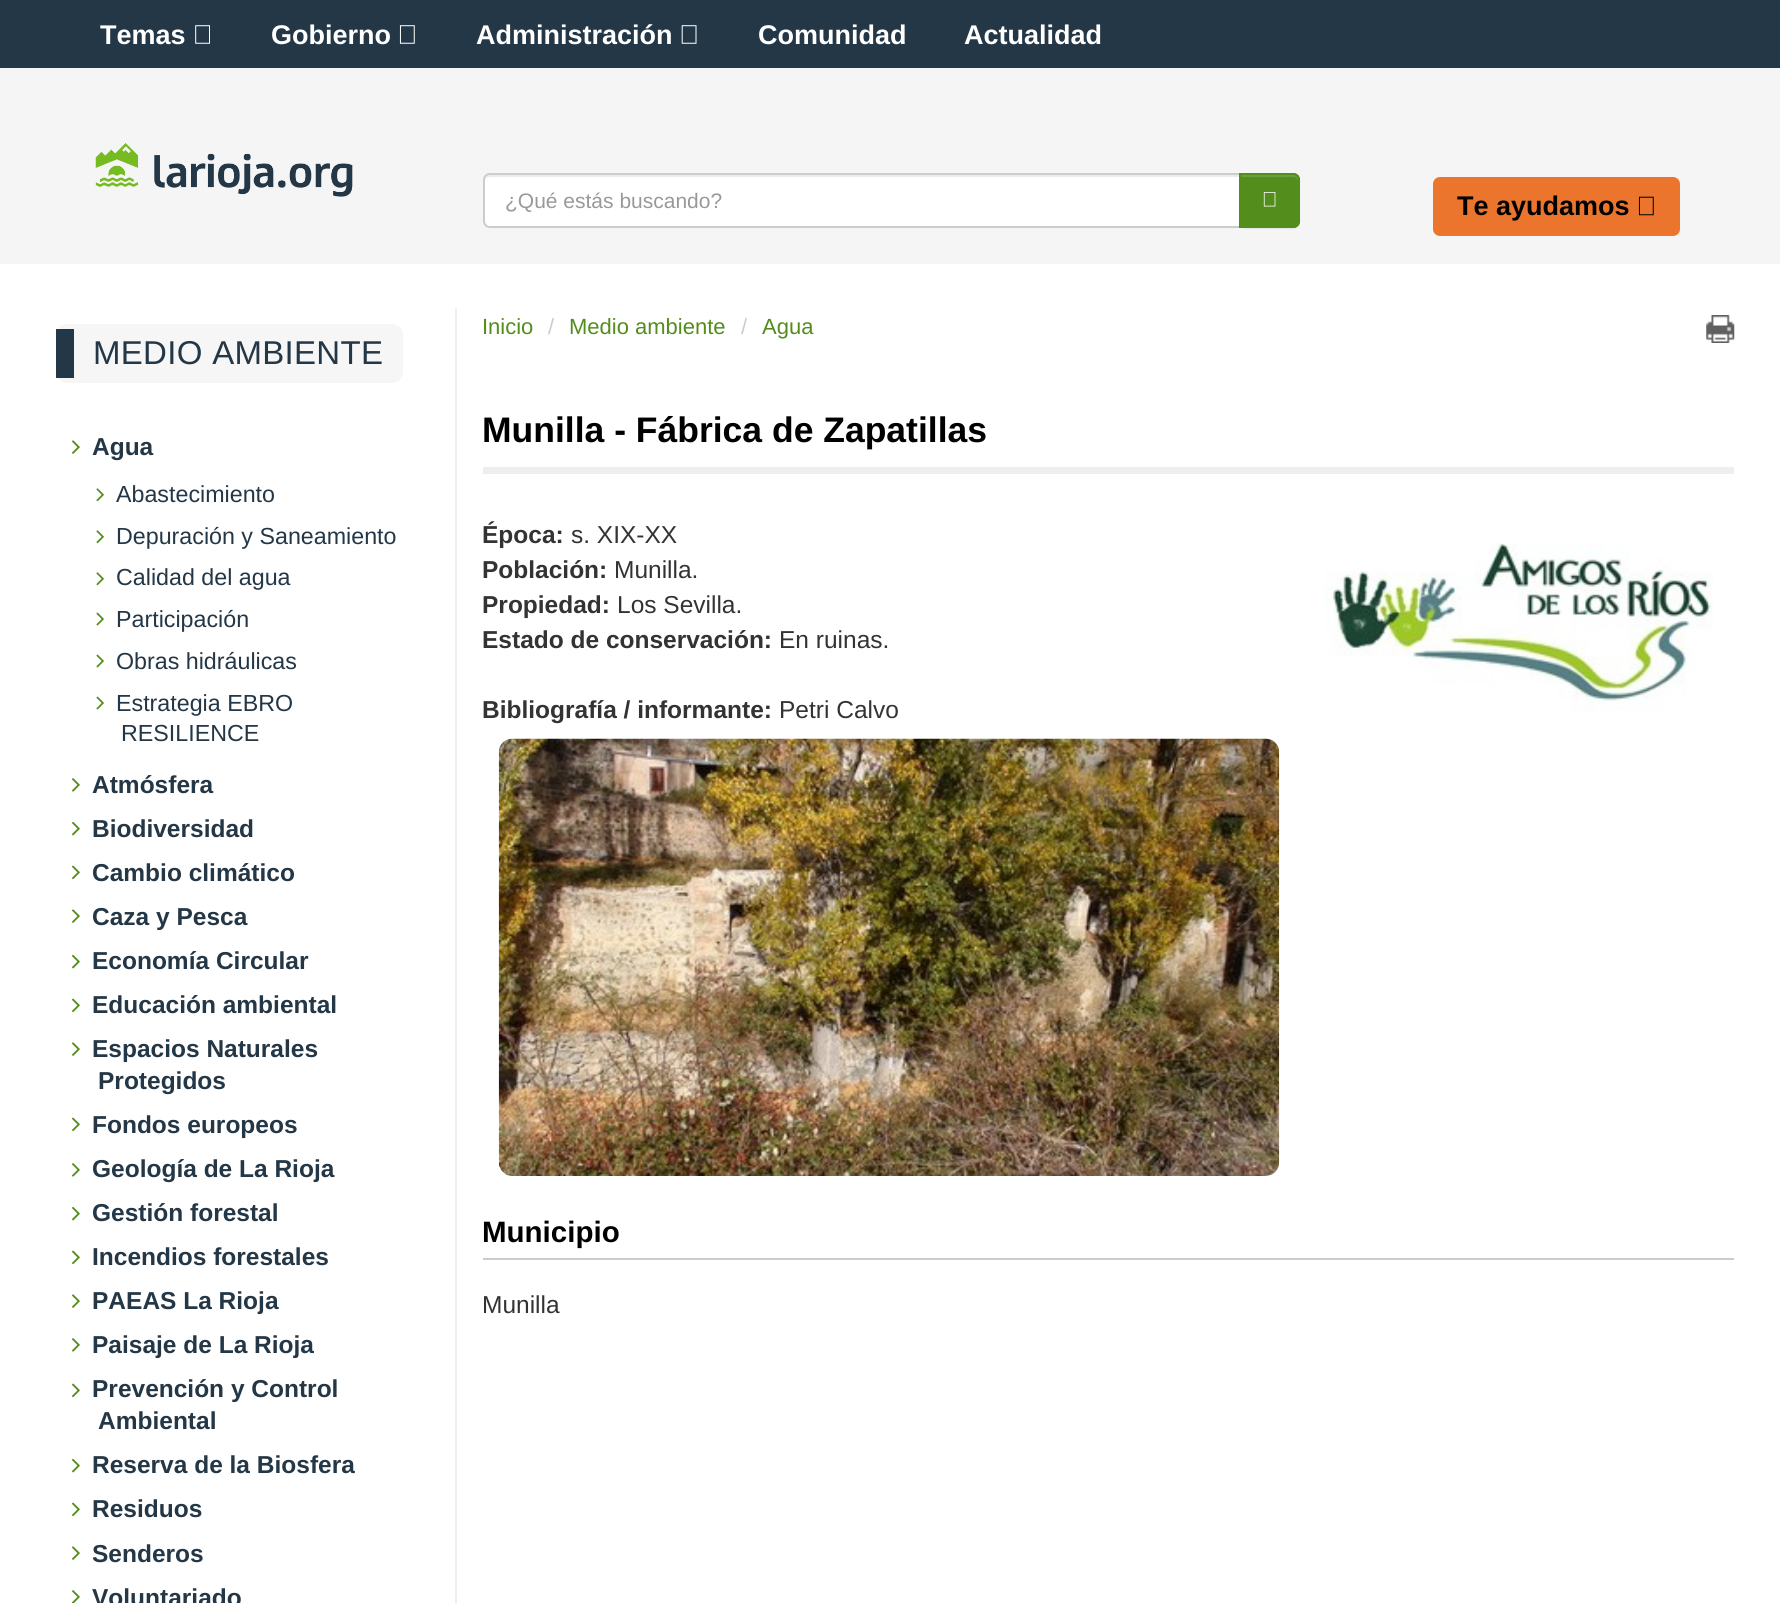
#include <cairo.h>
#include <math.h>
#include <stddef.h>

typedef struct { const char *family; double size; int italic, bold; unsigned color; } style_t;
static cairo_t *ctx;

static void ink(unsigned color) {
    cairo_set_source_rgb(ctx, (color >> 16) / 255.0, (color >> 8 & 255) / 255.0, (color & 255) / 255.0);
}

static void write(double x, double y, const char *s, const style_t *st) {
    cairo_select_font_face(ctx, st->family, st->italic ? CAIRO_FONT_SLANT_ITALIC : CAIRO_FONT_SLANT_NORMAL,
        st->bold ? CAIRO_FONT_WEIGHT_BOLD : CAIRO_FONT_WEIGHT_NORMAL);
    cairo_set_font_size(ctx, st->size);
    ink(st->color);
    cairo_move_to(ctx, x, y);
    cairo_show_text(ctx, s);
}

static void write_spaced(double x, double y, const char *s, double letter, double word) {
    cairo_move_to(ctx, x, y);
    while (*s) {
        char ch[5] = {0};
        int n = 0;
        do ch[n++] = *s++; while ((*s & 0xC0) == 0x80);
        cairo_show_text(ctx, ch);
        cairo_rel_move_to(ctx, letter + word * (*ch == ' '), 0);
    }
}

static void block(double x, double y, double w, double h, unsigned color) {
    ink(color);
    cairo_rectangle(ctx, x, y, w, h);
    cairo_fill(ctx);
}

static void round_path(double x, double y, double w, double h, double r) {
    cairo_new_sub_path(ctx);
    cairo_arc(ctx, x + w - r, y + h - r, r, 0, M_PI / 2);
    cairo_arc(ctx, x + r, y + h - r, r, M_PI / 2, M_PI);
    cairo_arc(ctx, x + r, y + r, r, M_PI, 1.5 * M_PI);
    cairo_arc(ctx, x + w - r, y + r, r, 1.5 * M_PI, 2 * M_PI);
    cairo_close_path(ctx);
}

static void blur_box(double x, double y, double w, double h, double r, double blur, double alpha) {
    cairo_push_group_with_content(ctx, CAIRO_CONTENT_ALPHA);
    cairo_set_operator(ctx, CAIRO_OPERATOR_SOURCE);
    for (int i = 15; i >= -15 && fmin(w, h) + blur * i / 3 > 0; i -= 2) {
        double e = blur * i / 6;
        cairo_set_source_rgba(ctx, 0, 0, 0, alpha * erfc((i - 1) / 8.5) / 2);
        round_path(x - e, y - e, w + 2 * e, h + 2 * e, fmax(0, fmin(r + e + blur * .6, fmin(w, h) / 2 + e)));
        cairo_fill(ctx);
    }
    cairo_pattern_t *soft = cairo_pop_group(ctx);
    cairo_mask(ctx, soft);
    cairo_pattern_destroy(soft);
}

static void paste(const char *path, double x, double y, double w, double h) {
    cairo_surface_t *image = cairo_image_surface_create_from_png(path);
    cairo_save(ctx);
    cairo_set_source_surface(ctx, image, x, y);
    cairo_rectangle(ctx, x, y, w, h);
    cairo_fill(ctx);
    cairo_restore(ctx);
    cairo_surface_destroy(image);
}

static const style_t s1 = {"Liberation Sans", 27, 0, 1, 0xffffff};
static const style_t s2 = {"Liberation Sans", 21, 0, 0, 0x999999};
static const style_t s3 = {"Liberation Sans", 27, 0, 1, 0x000000};
static const style_t s4 = {"Liberation Sans", 24.5, 0, 1, 0x243746};
static const style_t s5 = {"Liberation Sans", 23.25, 0, 0, 0x243746};
static const style_t s6 = {"Liberation Sans", 22, 0, 0, 0x538d1c};
static const style_t s7 = {"Liberation Sans", 22, 0, 0, 0xcccccc};
static const style_t s8 = {"Liberation Sans", 35.5, 0, 1, 0x000000};
static const style_t s9 = {"Liberation Sans", 24.5, 0, 1, 0x333333};
static const style_t s10 = {"Liberation Sans", 24.5, 0, 0, 0x333333};
static const style_t s11 = {"Liberation Sans", 29.5, 0, 1, 0x000000};

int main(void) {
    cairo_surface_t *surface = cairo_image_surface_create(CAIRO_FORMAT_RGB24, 1780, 1603);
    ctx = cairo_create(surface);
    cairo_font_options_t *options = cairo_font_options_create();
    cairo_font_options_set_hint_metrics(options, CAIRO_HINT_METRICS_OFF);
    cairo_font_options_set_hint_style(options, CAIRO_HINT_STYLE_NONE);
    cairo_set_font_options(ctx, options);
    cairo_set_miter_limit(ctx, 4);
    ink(0xffffff);
    cairo_paint(ctx);
    block(0, 68, 1780, 196, 0xf5f5f6);
    block(0, 0, 1780, 68, 0x243746);
    write(100, 44, "Temas", &s1);
    paste("pic1.png", 195, 25, 15, 19);
    write(271, 44, "Gobierno", &s1);
    paste("pic2.png", 399, 25, 16, 19);
    write(476, 44, "Administración", &s1);
    paste("pic3.png", 681, 25, 16, 19);
    write(758, 44, "Comunidad", &s1);
    write(964, 44, "Actualidad", &s1);
    paste("pic4.png", 95, 143, 258, 54);
    cairo_new_path(ctx);
    cairo_move_to(ctx, 490, 173);
    cairo_line_to(ctx, 1241, 173);
    cairo_line_to(ctx, 1241, 228);
    cairo_line_to(ctx, 490, 228);
    cairo_curve_to(ctx, 486, 228, 483, 225, 483, 221);
    cairo_line_to(ctx, 483, 180);
    cairo_curve_to(ctx, 483, 176, 486, 173, 490, 173);
    cairo_close_path(ctx);
    cairo_fill(ctx);
    ink(0xececec);
    cairo_new_path(ctx);
    cairo_move_to(ctx, 490, 177);
    cairo_line_to(ctx, 1239, 177);
    cairo_line_to(ctx, 1239, 175);
    cairo_line_to(ctx, 490, 175);
    cairo_curve_to(ctx, 486, 175, 485, 179, 485, 182);
    cairo_curve_to(ctx, 485, 179, 487, 177, 490, 177);
    cairo_close_path(ctx);
    cairo_fill(ctx);
    cairo_new_path(ctx);
    cairo_move_to(ctx, 490, 174);
    cairo_line_to(ctx, 1240, 174);
    cairo_line_to(ctx, 1240, 227);
    cairo_line_to(ctx, 490, 227);
    cairo_curve_to(ctx, 486.5, 227, 484, 224.5, 484, 221);
    cairo_line_to(ctx, 484, 180);
    cairo_curve_to(ctx, 484, 176.5, 486.5, 174, 490, 174);
    cairo_close_path(ctx);
    ink(0xcccccc);
    cairo_stroke(ctx);
    write(505, 208, "¿Qué estás buscando?", &s2);
    ink(0x000000);
    blur_box(1239, 175, 61, 54, 7, 1, 0.07);
    ink(0x538d1c);
    cairo_new_path(ctx);
    cairo_move_to(ctx, 1239, 173);
    cairo_line_to(ctx, 1293, 173);
    cairo_curve_to(ctx, 1297, 173, 1300, 176, 1300, 180);
    cairo_line_to(ctx, 1300, 221);
    cairo_curve_to(ctx, 1300, 225, 1297, 228, 1293, 228);
    cairo_line_to(ctx, 1239, 228);
    cairo_close_path(ctx);
    cairo_fill(ctx);
    ink(0x6d9e3e);
    cairo_new_path(ctx);
    cairo_move_to(ctx, 1241, 177);
    cairo_line_to(ctx, 1293, 177);
    cairo_curve_to(ctx, 1296, 177, 1298, 179, 1298, 182);
    cairo_line_to(ctx, 1298, 222);
    cairo_line_to(ctx, 1298, 225);
    cairo_curve_to(ctx, 1298, 224, 1299, 222, 1299, 221);
    cairo_line_to(ctx, 1299, 180);
    cairo_curve_to(ctx, 1299, 177, 1297, 175, 1294, 175);
    cairo_line_to(ctx, 1241, 175);
    cairo_close_path(ctx);
    cairo_fill(ctx);
    cairo_new_path(ctx);
    cairo_move_to(ctx, 1240, 174);
    cairo_line_to(ctx, 1293, 174);
    cairo_curve_to(ctx, 1296.5, 174, 1299, 176.5, 1299, 180);
    cairo_line_to(ctx, 1299, 221);
    cairo_curve_to(ctx, 1299, 224.5, 1296.5, 227, 1293, 227);
    cairo_line_to(ctx, 1240, 227);
    cairo_close_path(ctx);
    ink(0x538d1c);
    cairo_stroke(ctx);
    paste("pic5.png", 1263, 192, 13, 15);
    ink(0xec752e);
    round_path(1434, 178, 245, 57, 6);
    cairo_fill_preserve(ctx);
    cairo_stroke(ctx);
    write(1457, 215, "Te ayudamos", &s3);
    paste("pic6.png", 1638, 196, 16, 20);
    block(455, 308, 2, 1295, 0xeeeeee);
    ink(0xf6f6f6);
    round_path(56, 324, 347, 59, 11);
    cairo_fill(ctx);
    block(56, 329, 18, 49, 0x243746);
    cairo_select_font_face(ctx, "Liberation Sans", CAIRO_FONT_SLANT_NORMAL, CAIRO_FONT_WEIGHT_NORMAL);
    cairo_set_font_size(ctx, 33);
    write_spaced(93, 364, "MEDIO AMBIENTE", 0.3, 0);
    paste("pic7.png", 72, 440, 8, 14);
    write(92, 455, "Agua", &s4);
    paste("pic8.png", 96, 488, 8, 14);
    write(116, 502, "Abastecimiento", &s5);
    paste("pic8.png", 96, 530, 8, 14);
    write(116, 544, "Depuración y Saneamiento", &s5);
    paste("pic8.png", 96, 572, 8, 14);
    write(116, 585, "Calidad del agua", &s5);
    paste("pic9.png", 96, 612, 8, 14);
    write(116, 627, "Participación", &s5);
    paste("pic9.png", 96, 654, 8, 14);
    write(116, 669, "Obras hidráulicas", &s5);
    paste("pic9.png", 96, 696, 8, 14);
    write(116, 711, "Estrategia EBRO", &s5);
    write(121, 741, "RESILIENCE", &s5);
    paste("pic10.png", 72, 778, 8, 14);
    write(92, 793, "Atmósfera", &s4);
    paste("pic11.png", 72, 821, 8, 15);
    write(92, 837, "Biodiversidad", &s4);
    paste("pic12.png", 72, 865, 8, 15);
    write(92, 881, "Cambio climático", &s4);
    paste("pic7.png", 72, 909, 8, 14);
    write(92, 925, "Caza y Pesca", &s4);
    paste("pic11.png", 72, 954, 8, 15);
    write(92, 969, "Economía Circular", &s4);
    paste("pic12.png", 72, 998, 8, 15);
    write(92, 1013, "Educación ambiental", &s4);
    paste("pic7.png", 72, 1042, 8, 14);
    write(92, 1057, "Espacios Naturales", &s4);
    write(98, 1089, "Protegidos", &s4);
    paste("pic12.png", 72, 1117, 8, 15);
    write(92, 1133, "Fondos europeos", &s4);
    paste("pic10.png", 72, 1163, 8, 14);
    write(92, 1177, "Geología de La Rioja", &s4);
    paste("pic11.png", 72, 1206, 8, 15);
    write(92, 1221, "Gestión forestal", &s4);
    paste("pic12.png", 72, 1250, 8, 15);
    write(92, 1265, "Incendios forestales", &s4);
    paste("pic7.png", 72, 1294, 8, 14);
    write(92, 1309, "PAEAS La Rioja", &s4);
    paste("pic10.png", 72, 1338, 8, 14);
    write(92, 1353, "Paisaje de La Rioja", &s4);
    paste("pic12.png", 72, 1383, 8, 15);
    write(92, 1397, "Prevención y Control", &s4);
    write(98, 1429, "Ambiental", &s4);
    paste("pic11.png", 72, 1458, 8, 15);
    write(92, 1473, "Reserva de la Biosfera", &s4);
    paste("pic12.png", 72, 1502, 8, 15);
    write(92, 1517, "Residuos", &s4);
    paste("pic7.png", 72, 1546, 8, 14);
    write(92, 1562, "Senderos", &s4);
    paste("pic13.png", 72, 1590, 8, 13);
    write(92, 1606, "Voluntariado", &s4);
    write(482, 334, "Inicio", &s6);
    write(548, 334, "/", &s7);
    write(569, 334, "Medio ambiente", &s6);
    write(741, 334, "/", &s7);
    write(762, 334, "Agua", &s6);
    paste("pic14.png", 1706, 315, 29, 28);
    block(483, 467, 1251, 7, 0xeeeeee);
    write(482, 442, "Munilla - Fábrica de Zapatillas", &s8);
    write(482, 543, "Época:", &s9);
    write(571, 543, "s. XIX-XX", &s10);
    write(482, 578, "Población:", &s9);
    write(614, 578, "Munilla.", &s10);
    write(482, 613, "Propiedad:", &s9);
    write(617, 613, "Los Sevilla.", &s10);
    write(482, 648, "Estado de conservación:", &s9);
    write(779, 648, "En ruinas.", &s10);
    write(482, 718, "Bibliografía / informante:", &s9);
    write(779, 718, "Petri Calvo", &s10);
    paste("pic15.png", 1324, 543, 389, 170);
    paste("pic16.png", 498, 738, 782, 438);
    block(483, 1258, 1251, 2, 0xcccccc);
    write(482, 1242, "Municipio", &s11);
    write(482, 1313, "Munilla", &s10);
    cairo_surface_write_to_png(surface, "screenshot.png");
    cairo_font_options_destroy(options);
    cairo_destroy(ctx);
    cairo_surface_destroy(surface);
    return 0;
}
